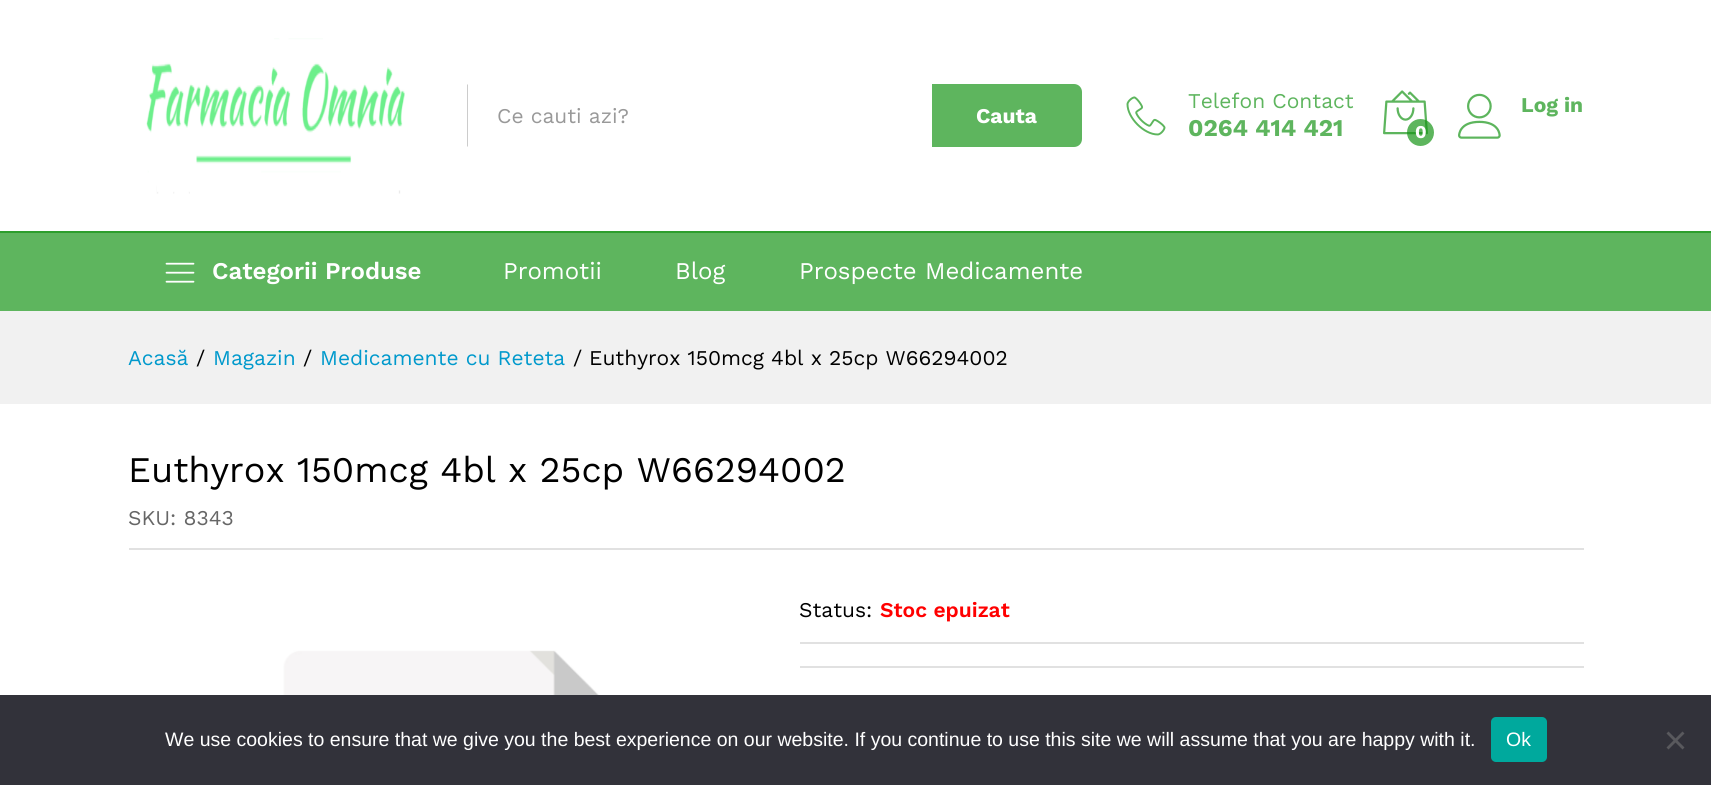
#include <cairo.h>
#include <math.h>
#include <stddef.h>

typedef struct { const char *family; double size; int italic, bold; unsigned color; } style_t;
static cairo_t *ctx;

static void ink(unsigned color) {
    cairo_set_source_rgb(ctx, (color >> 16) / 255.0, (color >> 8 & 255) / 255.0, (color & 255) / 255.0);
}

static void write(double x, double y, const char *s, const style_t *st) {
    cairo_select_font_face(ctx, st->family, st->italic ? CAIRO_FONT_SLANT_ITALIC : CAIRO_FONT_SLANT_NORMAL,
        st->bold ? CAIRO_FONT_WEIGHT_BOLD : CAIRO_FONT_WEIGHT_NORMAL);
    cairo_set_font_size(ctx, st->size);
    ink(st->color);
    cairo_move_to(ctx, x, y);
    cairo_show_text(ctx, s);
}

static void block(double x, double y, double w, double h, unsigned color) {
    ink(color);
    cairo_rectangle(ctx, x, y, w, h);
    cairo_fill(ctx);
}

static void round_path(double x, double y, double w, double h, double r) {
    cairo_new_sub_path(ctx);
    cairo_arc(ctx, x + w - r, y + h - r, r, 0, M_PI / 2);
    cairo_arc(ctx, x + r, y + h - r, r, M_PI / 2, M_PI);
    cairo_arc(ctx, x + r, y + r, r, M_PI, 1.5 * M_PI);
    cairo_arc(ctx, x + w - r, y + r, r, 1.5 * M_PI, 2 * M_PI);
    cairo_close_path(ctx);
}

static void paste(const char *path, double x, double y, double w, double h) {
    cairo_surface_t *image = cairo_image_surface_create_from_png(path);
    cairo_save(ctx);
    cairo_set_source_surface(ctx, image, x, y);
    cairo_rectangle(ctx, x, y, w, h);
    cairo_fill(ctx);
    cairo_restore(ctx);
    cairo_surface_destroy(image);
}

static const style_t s1 = {"Work Sans", 21, 0, 0, 0x999999};
static const style_t s2 = {"Work Sans", 21, 0, 1, 0xffffff};
static const style_t s3 = {"Work Sans", 21, 0, 0, 0x5eb55e};
static const style_t s4 = {"Work Sans", 24, 0, 1, 0x5eb55e};
static const style_t s5 = {"Work Sans", 21, 0, 1, 0x5eb55e};
static const style_t s6 = {"Work Sans", 18, 0, 1, 0xffffff};
static const style_t s7 = {"Work Sans SemiBold", 24, 0, 0, 0xffffff};
static const style_t s8 = {"Work Sans", 24, 0, 0, 0xffffff};
static const style_t s9 = {"Work Sans", 21, 0, 0, 0x0099cc};
static const style_t s10 = {"Work Sans", 21, 0, 0, 0x000000};
static const style_t s11 = {"Work Sans", 36, 0, 0, 0x000000};
static const style_t s12 = {"Work Sans", 21, 0, 0, 0x666666};
static const style_t s13 = {"Work Sans SemiBold", 21, 0, 0, 0xff0000};
static const style_t s14 = {"Liberation Sans", 19.5, 0, 0, 0xffffff};

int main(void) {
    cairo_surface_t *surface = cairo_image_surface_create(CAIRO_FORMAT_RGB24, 1711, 785);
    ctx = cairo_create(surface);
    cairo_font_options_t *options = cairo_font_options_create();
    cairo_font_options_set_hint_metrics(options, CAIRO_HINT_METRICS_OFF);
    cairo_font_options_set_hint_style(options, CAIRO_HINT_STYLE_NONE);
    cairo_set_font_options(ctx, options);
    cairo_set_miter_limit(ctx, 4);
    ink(0xffffff);
    cairo_paint(ctx);
    paste("pic1.png", 146, 38, 259, 156);
    ink(0xcccccc);
    cairo_new_path(ctx);
    cairo_move_to(ctx, 468, 84);
    cairo_line_to(ctx, 467, 85);
    cairo_line_to(ctx, 467, 146);
    cairo_line_to(ctx, 468, 147);
    cairo_close_path(ctx);
    cairo_fill(ctx);
    write(497, 123, "Ce cauti azi?", &s1);
    ink(0x5eb55e);
    cairo_new_path(ctx);
    cairo_move_to(ctx, 932, 84);
    cairo_line_to(ctx, 1074, 84);
    cairo_curve_to(ctx, 1078.5, 84, 1082, 87.5, 1082, 92);
    cairo_line_to(ctx, 1082, 139);
    cairo_curve_to(ctx, 1082, 143.5, 1078.5, 147, 1074, 147);
    cairo_line_to(ctx, 932, 147);
    cairo_close_path(ctx);
    cairo_fill(ctx);
    write(976, 123, "Cauta", &s2);
    paste("pic2.png", 1126, 96, 40, 40);
    write(1188, 108, "Telefon Contact", &s3);
    write(1188, 136, "0264 414 421", &s4);
    paste("pic3.png", 1458, 93, 43, 46);
    write(1521, 112, "Log in", &s5);
    paste("pic4.png", 1383, 90, 45, 45);
    cairo_set_source_rgba(ctx, 0.082, 0.58, 0.082, 0.69);
    cairo_arc(ctx, 1420.5, 132.5, 13.5, 0, 2 * M_PI);
    cairo_fill(ctx);
    write(1415, 138, "0", &s6);
    block(0, 233, 1711, 78, 0x5eb55e);
    block(0, 231, 1711, 2, 0x2c9e2c);
    paste("pic5.png", 165, 262, 30, 21);
    write(212, 279, "Categorii Produse", &s7);
    write(503, 279, "Promotii", &s8);
    write(675, 279, "Blog", &s8);
    write(799, 279, "Prospecte Medicamente", &s8);
    block(0, 311, 1711, 93, 0xf1f1f1);
    write(128, 365, "Acasă", &s9);
    write(196, 365, "/", &s10);
    write(213, 365, "Magazin", &s9);
    write(303, 365, "/", &s10);
    write(320, 365, "Medicamente cu Reteta", &s9);
    write(573, 365, "/", &s10);
    write(589, 365, "Euthyrox 150mcg 4bl x 25cp W66294002", &s10);
    block(129, 548, 1455, 2, 0xe1e1e1);
    write(128, 482, "Euthyrox 150mcg 4bl x 25cp W66294002", &s11);
    write(128, 525, "SKU: 8343", &s12);
    block(800, 642, 784, 2, 0xe1e1e1);
    write(799, 617, "Status:", &s10);
    write(880, 617, "Stoc epuizat", &s13);
    block(800, 666, 784, 2, 0xe1e1e1);
    paste("pic6.png", 255, 650, 374, 45);
    block(0, 695, 1711, 90, 0x32323a);
    write(165, 746, "We use cookies to ensure that we give you the best experience on our website. If you continue to use this site we will assume that you are happy with it.", &s14);
    ink(0x00a99d);
    round_path(1491, 717, 56, 45, 5);
    cairo_fill(ctx);
    write(1506, 746, "Ok", &s14);
    ink(0x59595d);
    cairo_new_path(ctx);
    cairo_move_to(ctx, 1682.5, 731.5);
    cairo_line_to(ctx, 1684.5, 733.5);
    cairo_line_to(ctx, 1668.5, 749.5);
    cairo_line_to(ctx, 1666.5, 747.5);
    cairo_close_path(ctx);
    cairo_fill(ctx);
    cairo_new_path(ctx);
    cairo_move_to(ctx, 1666.5, 733.5);
    cairo_line_to(ctx, 1668.5, 731.5);
    cairo_line_to(ctx, 1684.5, 747.5);
    cairo_line_to(ctx, 1682.5, 749.5);
    cairo_close_path(ctx);
    cairo_fill(ctx);
    cairo_surface_write_to_png(surface, "screenshot.png");
    cairo_font_options_destroy(options);
    cairo_destroy(ctx);
    cairo_surface_destroy(surface);
    return 0;
}
